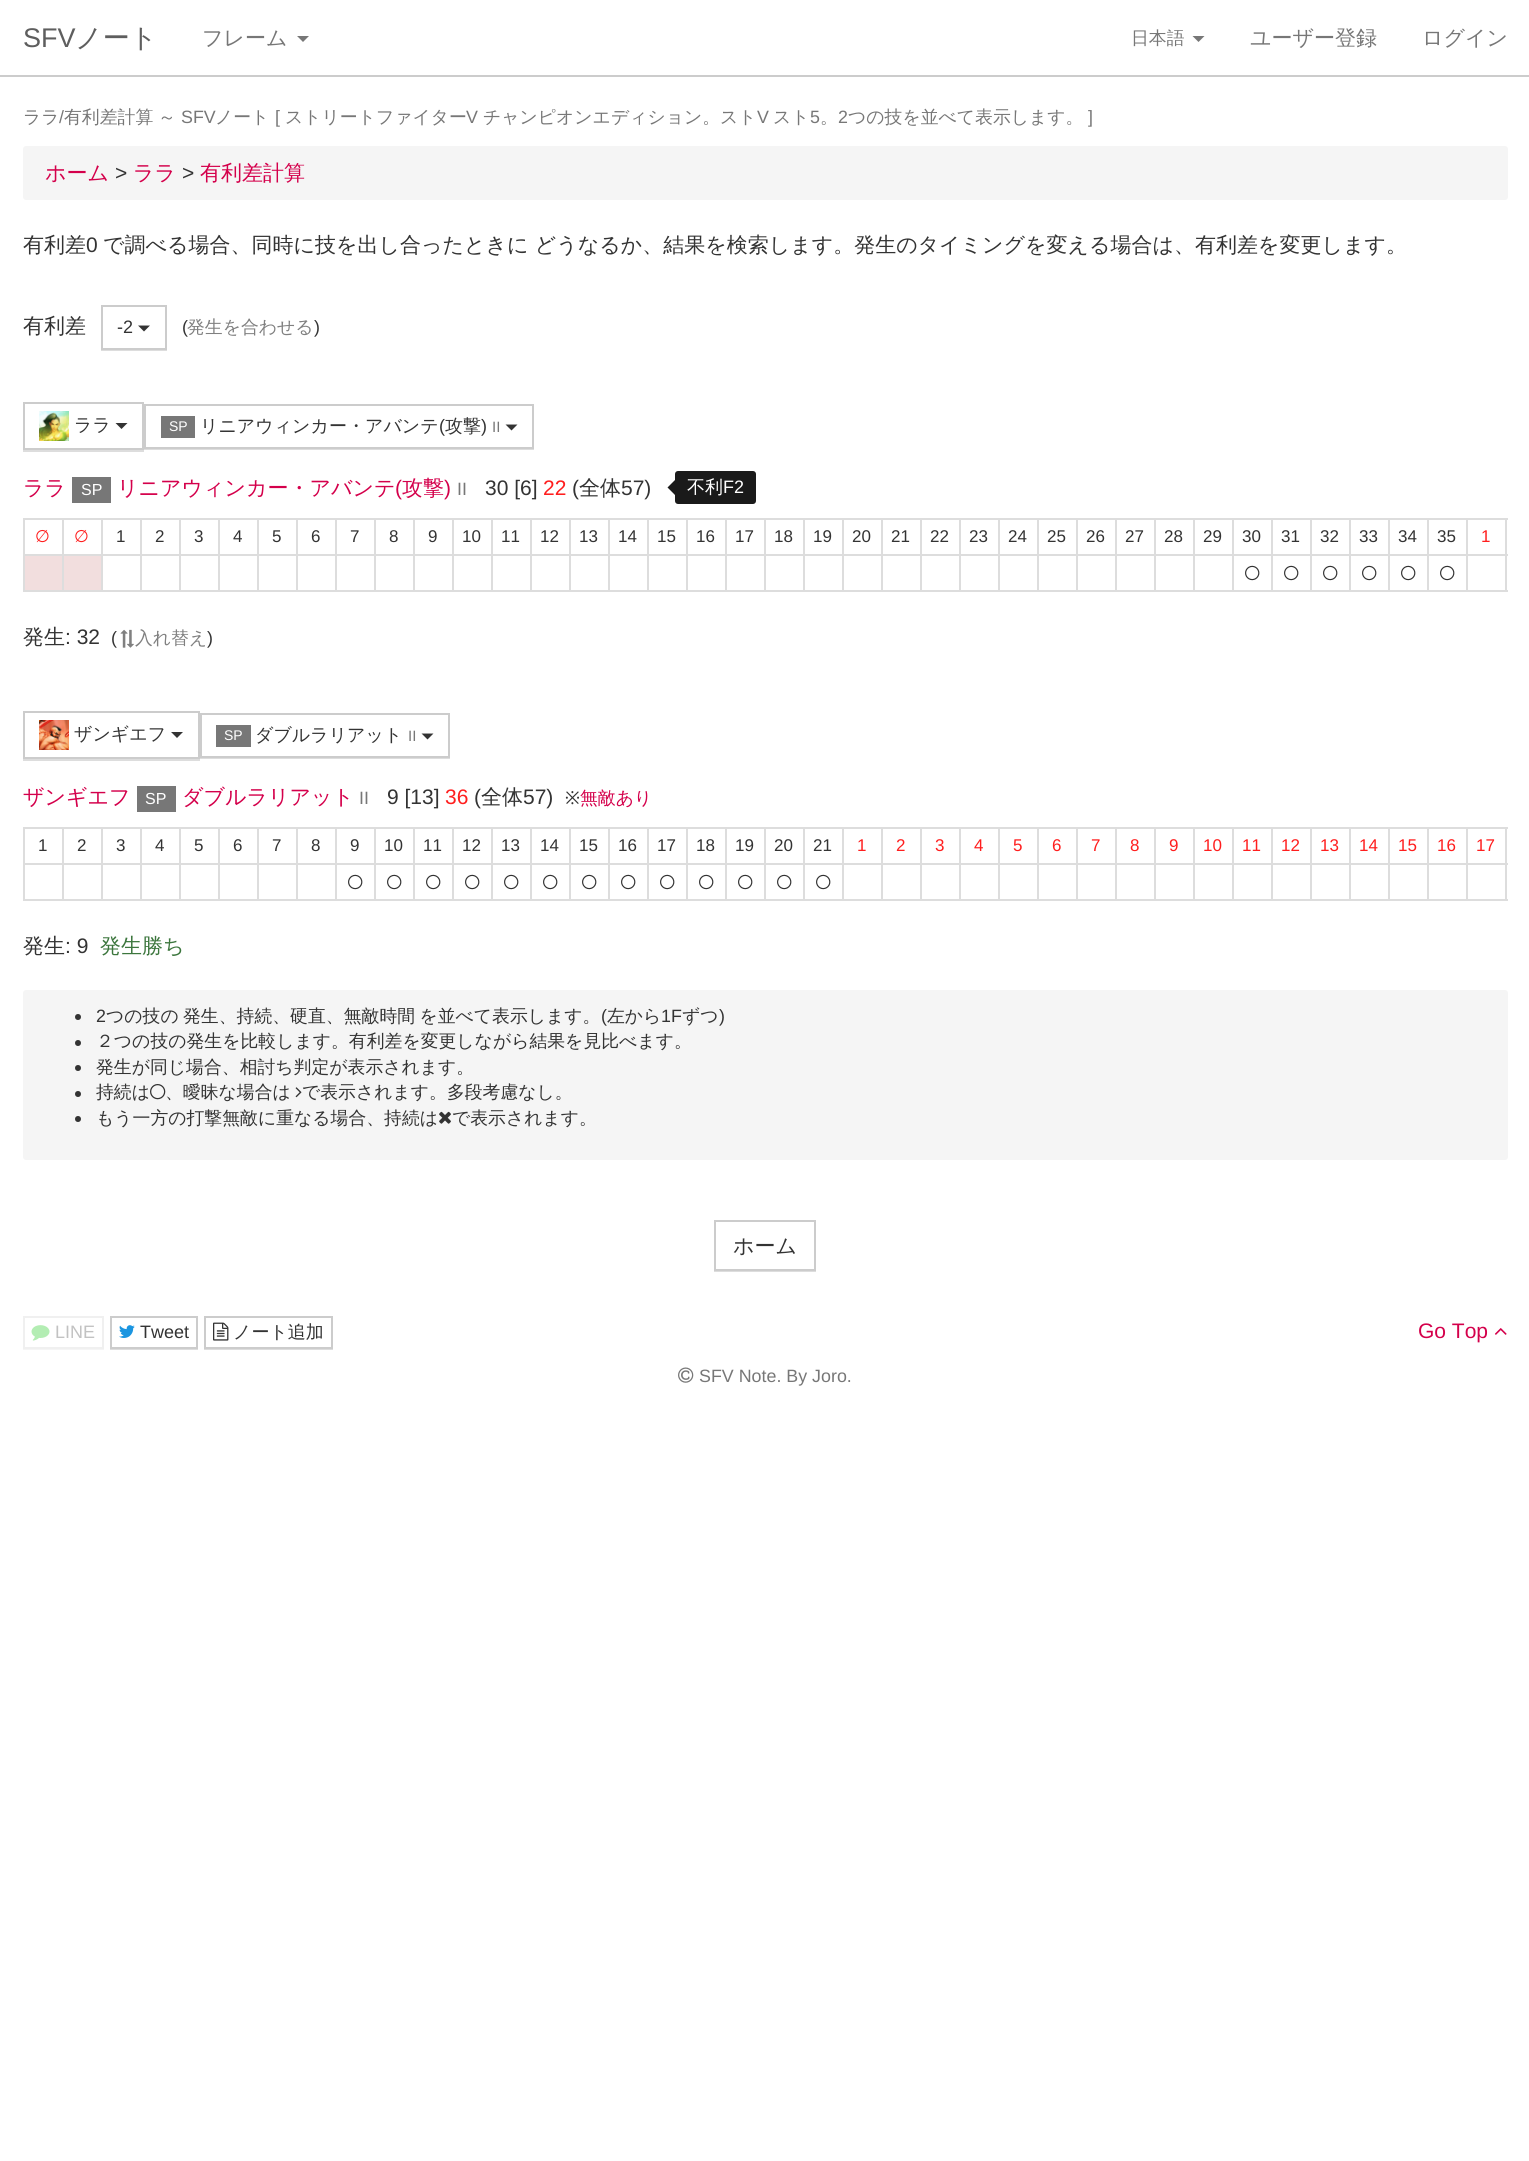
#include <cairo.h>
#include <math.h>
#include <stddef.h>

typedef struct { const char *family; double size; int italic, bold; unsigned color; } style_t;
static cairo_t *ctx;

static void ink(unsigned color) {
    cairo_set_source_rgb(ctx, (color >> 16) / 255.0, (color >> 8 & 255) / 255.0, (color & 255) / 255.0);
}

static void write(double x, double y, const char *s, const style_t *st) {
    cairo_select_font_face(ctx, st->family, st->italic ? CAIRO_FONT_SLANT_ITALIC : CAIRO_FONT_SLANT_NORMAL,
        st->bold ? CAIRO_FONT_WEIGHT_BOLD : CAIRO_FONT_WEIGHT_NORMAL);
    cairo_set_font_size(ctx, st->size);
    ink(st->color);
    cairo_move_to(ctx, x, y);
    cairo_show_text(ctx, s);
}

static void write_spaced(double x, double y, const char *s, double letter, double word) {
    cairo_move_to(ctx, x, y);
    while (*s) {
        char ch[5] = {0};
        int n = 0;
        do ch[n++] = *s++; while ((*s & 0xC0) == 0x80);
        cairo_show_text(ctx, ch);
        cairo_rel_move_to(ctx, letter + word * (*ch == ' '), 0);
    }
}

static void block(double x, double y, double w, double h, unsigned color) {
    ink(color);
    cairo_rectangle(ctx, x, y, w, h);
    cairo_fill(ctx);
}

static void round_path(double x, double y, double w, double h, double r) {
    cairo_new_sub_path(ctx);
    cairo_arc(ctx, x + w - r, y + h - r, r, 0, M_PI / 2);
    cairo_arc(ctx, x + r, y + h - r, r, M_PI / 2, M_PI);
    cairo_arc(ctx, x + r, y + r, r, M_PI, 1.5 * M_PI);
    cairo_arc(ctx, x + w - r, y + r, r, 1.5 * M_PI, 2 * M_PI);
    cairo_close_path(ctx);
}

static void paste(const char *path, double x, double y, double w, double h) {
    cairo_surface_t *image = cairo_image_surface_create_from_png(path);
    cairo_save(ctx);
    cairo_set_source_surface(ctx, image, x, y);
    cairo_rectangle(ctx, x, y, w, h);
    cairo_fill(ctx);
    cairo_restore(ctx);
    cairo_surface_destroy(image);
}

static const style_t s1 = {"Liberation Sans", 27, 0, 0, 0x5e5e5e};
static const style_t s2 = {"WenQuanYi Zen Hei Medium", 27, 0, 0, 0x5e5e5e};
static const style_t s3 = {"WenQuanYi Zen Hei Medium", 21, 0, 0, 0x777777};
static const style_t s4 = {"WenQuanYi Zen Hei Medium", 17.85, 0, 0, 0x777777};
static const style_t s5 = {"Liberation Sans", 17.85, 0, 0, 0x777777};
static const style_t s6 = {"WenQuanYi Zen Hei Medium", 21, 0, 0, 0xd4004b};
static const style_t s7 = {"Liberation Sans", 21, 0, 0, 0x333333};
static const style_t s8 = {"WenQuanYi Zen Hei Medium", 21, 0, 0, 0x333333};
static const style_t s9 = {"Liberation Sans", 18, 0, 0, 0x333333};
static const style_t s10 = {"Liberation Sans", 17.85, 0, 0, 0x333333};
static const style_t s11 = {"WenQuanYi Zen Hei Medium", 17.85, 0, 0, 0x808080};
static const style_t s12 = {"WenQuanYi Zen Hei Medium", 18, 0, 0, 0x333333};
static const style_t s13 = {"Liberation Sans", 14, 0, 0, 0xffffff};
static const style_t s14 = {"Liberation Sans", 15, 0, 0, 0x777777};
static const style_t s15 = {"Liberation Sans", 16, 0, 0, 0xffffff};
static const style_t s16 = {"Liberation Sans", 21, 0, 0, 0xd4004b};
static const style_t s17 = {"Liberation Sans", 21, 0, 0, 0xff1e1e};
static const style_t s18 = {"WenQuanYi Zen Hei Medium", 18, 0, 0, 0xffffff};
static const style_t s19 = {"Liberation Sans", 18, 0, 0, 0xffffff};
static const style_t s20 = {"DejaVu Sans", 17, 0, 0, 0xff1e1e};
static const style_t s21 = {"Liberation Sans", 17, 0, 0, 0x333333};
static const style_t s22 = {"Liberation Sans", 17, 0, 0, 0xff1e1e};
static const style_t s23 = {"Noto Sans", 17.85, 0, 0, 0x333333};
static const style_t s24 = {"WenQuanYi Zen Hei Medium", 17.85, 0, 0, 0xd4004b};
static const style_t s25 = {"WenQuanYi Zen Hei Medium", 21, 0, 0, 0x3c763d};
static const style_t s26 = {"WenQuanYi Zen Hei Medium", 17.85, 0, 0, 0x333333};
static const style_t s27 = {"Liberation Sans", 18, 0, 0, 0xc2c2c2};

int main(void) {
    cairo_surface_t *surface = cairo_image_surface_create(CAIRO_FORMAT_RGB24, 1529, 2161);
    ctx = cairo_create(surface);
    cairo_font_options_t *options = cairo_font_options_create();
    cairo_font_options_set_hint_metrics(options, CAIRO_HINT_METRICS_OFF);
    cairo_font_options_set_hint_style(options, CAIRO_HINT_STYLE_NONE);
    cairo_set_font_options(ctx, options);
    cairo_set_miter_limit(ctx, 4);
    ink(0xffffff);
    cairo_paint(ctx);
    block(0, 75, 1529, 2, 0xcccccc);
    write(23, 47, "SFV", &s1);
    write(75, 47, "ノート", &s2);
    write(202, 45, "フレーム", &s3);
    cairo_new_path(ctx);
    cairo_move_to(ctx, 297, 36);
    cairo_line_to(ctx, 309, 36);
    cairo_line_to(ctx, 303, 42);
    cairo_close_path(ctx);
    cairo_fill(ctx);
    write(1131, 44, "日本語", &s4);
    cairo_new_path(ctx);
    cairo_move_to(ctx, 1192.5, 36);
    cairo_line_to(ctx, 1204.5, 36);
    cairo_line_to(ctx, 1198.5, 42);
    cairo_close_path(ctx);
    cairo_fill(ctx);
    write(1250, 45, "ユーザー登録", &s3);
    write(1422, 45, "ログイン", &s3);
    write(23, 123, "ララ", &s4);
    write(59, 123, "/", &s5);
    write(64, 123, "有利差計算", &s4);
    write(158, 123, "～", &s4);
    write(181, 123, "SFV", &s5);
    write(215, 123, "ノート", &s4);
    write(275, 123, "[", &s5);
    write(285, 123, "ストリートファイター", &s4);
    write(466, 123, "V", &s5);
    write(483, 123, "チャンピオンエディション。スト", &s4);
    write(757, 123, "V", &s5);
    write(773, 123, "スト", &s4);
    write(810, 123, "5", &s5);
    write(838, 123, "2", &s5);
    write(848, 123, "つの技を並べて表示します。", &s4);
    write(1088, 123, "]", &s5);
    write(820, 123, "。", &s4);
    ink(0xf5f5f5);
    round_path(23, 146, 1485, 54, 3);
    cairo_fill(ctx);
    write(45, 180, "ホーム", &s6);
    write(115, 180, ">", &s7);
    write(133, 180, "ララ", &s6);
    write(182, 180, ">", &s7);
    write(200, 180, "有利差計算", &s6);
    write(23, 252, "有利差", &s8);
    write(86, 252, "0", &s7);
    write(103, 252, "で調べる場合、同時に技を出し合ったときに どうなるか、結果を検索します。発生のタイミングを変える場合は、有利差を変更します。", &s8);
    write(23, 333, "有利差", &s8);
    ink(0xdddddd);
    cairo_new_path(ctx);
    cairo_move_to(ctx, 101, 350);
    cairo_line_to(ctx, 101, 351);
    cairo_line_to(ctx, 167, 351);
    cairo_line_to(ctx, 167, 306);
    cairo_line_to(ctx, 166, 306);
    cairo_line_to(ctx, 166, 350);
    cairo_close_path(ctx);
    cairo_fill(ctx);
    cairo_rectangle(ctx, 102, 306, 64, 43);
    ink(0xcccccc);
    cairo_stroke(ctx);
    write(117, 333, "-2", &s9);
    cairo_new_path(ctx);
    cairo_move_to(ctx, 138, 325.5);
    cairo_line_to(ctx, 150, 325.5);
    cairo_line_to(ctx, 144, 331.5);
    cairo_close_path(ctx);
    cairo_fill(ctx);
    write(182, 333, "(", &s10);
    write(187, 333, "発生を合わせる", &s11);
    write(314, 333, ")", &s10);
    block(23, 450, 121, 2, 0xdddddd);
    cairo_rectangle(ctx, 24, 403, 119, 46);
    ink(0xcccccc);
    cairo_stroke(ctx);
    paste("pic1.png", 39, 411, 30, 30);
    write(74, 431, "ララ", &s12);
    cairo_new_path(ctx);
    cairo_move_to(ctx, 115.5, 423);
    cairo_line_to(ctx, 127.5, 423);
    cairo_line_to(ctx, 121.5, 429);
    cairo_close_path(ctx);
    cairo_fill(ctx);
    block(144, 449, 390, 1, 0xdddddd);
    cairo_rectangle(ctx, 145, 405, 388, 43);
    ink(0xcccccc);
    cairo_stroke(ctx);
    block(161, 416, 34, 22, 0x777777);
    write(169, 431, "SP", &s13);
    write(200, 432, "リニアウィンカー・アバンテ", &s12);
    write(439, 432, "(", &s9);
    write(445, 432, "攻撃", &s12);
    write(481, 432, ")", &s9);
    write(492, 432, "II", &s14);
    ink(0x333333);
    cairo_new_path(ctx);
    cairo_move_to(ctx, 505.5, 424.5);
    cairo_line_to(ctx, 517.5, 424.5);
    cairo_line_to(ctx, 511.5, 430.5);
    cairo_close_path(ctx);
    cairo_fill(ctx);
    write(23, 495, "ララ", &s6);
    block(72, 477, 39, 26, 0x777777);
    write(81, 495, "SP", &s15);
    write(117, 495, "リニアウィンカー・アバンテ", &s6);
    write(395, 495, "(", &s16);
    write(402, 495, "攻撃", &s6);
    write(444, 495, ")", &s16);
    write(457, 495, "II", &s5);
    write(485, 495, "30 [6]", &s7);
    write(543, 495, "22", &s17);
    write(572, 495, "(", &s7);
    write(579, 495, "全体", &s8);
    write(621, 495, "57)", &s7);
    ink(0x1a1a1a);
    cairo_new_path(ctx);
    cairo_move_to(ctx, 675, 480);
    cairo_line_to(ctx, 675, 495);
    cairo_line_to(ctx, 667.5, 487.5);
    cairo_close_path(ctx);
    cairo_fill(ctx);
    round_path(675, 471, 81, 33, 3);
    cairo_fill(ctx);
    write(687, 493, "不利", &s18);
    write(723, 493, "F2", &s19);
    block(23, 518, 1485, 2, 0xdddddd);
    block(23, 590, 1485, 2, 0xdddddd);
    block(23, 518, 2, 73, 0xdddddd);
    write(35, 542, "∅", &s20);
    block(1505, 554, 3, 2, 0xdddddd);
    block(1505, 554, 2, 37, 0xdddddd);
    block(1466, 554, 40, 2, 0xdddddd);
    block(1466, 554, 2, 37, 0xdddddd);
    block(1427, 554, 40, 2, 0xdddddd);
    block(1427, 554, 2, 37, 0xdddddd);
    block(1388, 554, 40, 2, 0xdddddd);
    block(1388, 554, 2, 37, 0xdddddd);
    block(1349, 554, 40, 2, 0xdddddd);
    block(1349, 554, 2, 37, 0xdddddd);
    block(1310, 554, 40, 2, 0xdddddd);
    block(1310, 554, 2, 37, 0xdddddd);
    block(1271, 554, 40, 2, 0xdddddd);
    block(1271, 554, 2, 37, 0xdddddd);
    block(1232, 554, 40, 2, 0xdddddd);
    block(1232, 554, 2, 37, 0xdddddd);
    block(1193, 554, 40, 2, 0xdddddd);
    block(1193, 554, 2, 37, 0xdddddd);
    block(1154, 554, 40, 2, 0xdddddd);
    block(1154, 554, 2, 37, 0xdddddd);
    block(1115, 554, 40, 2, 0xdddddd);
    block(1115, 554, 2, 37, 0xdddddd);
    block(1076, 554, 40, 2, 0xdddddd);
    block(1076, 554, 2, 37, 0xdddddd);
    block(1037, 554, 40, 2, 0xdddddd);
    block(1037, 554, 2, 37, 0xdddddd);
    block(998, 554, 40, 2, 0xdddddd);
    block(998, 554, 2, 37, 0xdddddd);
    block(959, 554, 40, 2, 0xdddddd);
    block(959, 554, 2, 37, 0xdddddd);
    block(920, 554, 40, 2, 0xdddddd);
    block(920, 554, 2, 37, 0xdddddd);
    block(881, 554, 40, 2, 0xdddddd);
    block(881, 554, 2, 37, 0xdddddd);
    block(842, 554, 40, 2, 0xdddddd);
    block(842, 554, 2, 37, 0xdddddd);
    block(803, 554, 40, 2, 0xdddddd);
    block(803, 554, 2, 37, 0xdddddd);
    block(764, 554, 40, 2, 0xdddddd);
    block(764, 554, 2, 37, 0xdddddd);
    block(725, 554, 40, 2, 0xdddddd);
    block(725, 554, 2, 37, 0xdddddd);
    block(686, 554, 40, 2, 0xdddddd);
    block(686, 554, 2, 37, 0xdddddd);
    block(647, 554, 40, 2, 0xdddddd);
    block(647, 554, 2, 37, 0xdddddd);
    block(608, 554, 40, 2, 0xdddddd);
    block(608, 554, 2, 37, 0xdddddd);
    block(569, 554, 40, 2, 0xdddddd);
    block(569, 554, 2, 37, 0xdddddd);
    block(530, 554, 40, 2, 0xdddddd);
    block(530, 554, 2, 37, 0xdddddd);
    block(491, 554, 40, 2, 0xdddddd);
    block(491, 554, 2, 37, 0xdddddd);
    block(452, 554, 40, 2, 0xdddddd);
    block(452, 554, 2, 37, 0xdddddd);
    block(413, 554, 40, 2, 0xdddddd);
    block(413, 554, 2, 37, 0xdddddd);
    block(374, 554, 40, 2, 0xdddddd);
    block(374, 554, 2, 37, 0xdddddd);
    block(335, 554, 40, 2, 0xdddddd);
    block(335, 554, 2, 37, 0xdddddd);
    block(296, 554, 40, 2, 0xdddddd);
    block(296, 554, 2, 37, 0xdddddd);
    block(257, 554, 40, 2, 0xdddddd);
    block(257, 554, 2, 37, 0xdddddd);
    block(218, 554, 40, 2, 0xdddddd);
    block(218, 554, 2, 37, 0xdddddd);
    block(179, 554, 40, 2, 0xdddddd);
    block(179, 554, 2, 37, 0xdddddd);
    block(140, 554, 40, 2, 0xdddddd);
    block(140, 554, 2, 37, 0xdddddd);
    block(101, 554, 40, 2, 0xdddddd);
    block(101, 554, 2, 37, 0xdddddd);
    block(62, 554, 40, 2, 0xdddddd);
    block(62, 554, 2, 37, 0xdddddd);
    block(23, 554, 40, 2, 0xdddddd);
    block(62, 518, 2, 37, 0xdddddd);
    write(74, 542, "∅", &s20);
    block(101, 518, 2, 37, 0xdddddd);
    write(116, 542, "1", &s21);
    block(140, 518, 2, 37, 0xdddddd);
    write(155, 542, "2", &s21);
    block(179, 518, 2, 37, 0xdddddd);
    write(194, 542, "3", &s21);
    block(218, 518, 2, 37, 0xdddddd);
    write(233, 542, "4", &s21);
    block(257, 518, 2, 37, 0xdddddd);
    write(272, 542, "5", &s21);
    block(296, 518, 2, 37, 0xdddddd);
    write(311, 542, "6", &s21);
    block(335, 518, 2, 37, 0xdddddd);
    write(350, 542, "7", &s21);
    block(374, 518, 2, 37, 0xdddddd);
    write(389, 542, "8", &s21);
    block(413, 518, 2, 37, 0xdddddd);
    write(428, 542, "9", &s21);
    block(452, 518, 2, 37, 0xdddddd);
    write(462, 542, "10", &s21);
    block(491, 518, 2, 37, 0xdddddd);
    write(501, 542, "11", &s21);
    block(530, 518, 2, 37, 0xdddddd);
    write(540, 542, "12", &s21);
    block(569, 518, 2, 37, 0xdddddd);
    write(579, 542, "13", &s21);
    block(608, 518, 2, 37, 0xdddddd);
    write(618, 542, "14", &s21);
    block(647, 518, 2, 37, 0xdddddd);
    write(657, 542, "15", &s21);
    block(686, 518, 2, 37, 0xdddddd);
    write(696, 542, "16", &s21);
    block(725, 518, 2, 37, 0xdddddd);
    write(735, 542, "17", &s21);
    block(764, 518, 2, 37, 0xdddddd);
    write(774, 542, "18", &s21);
    block(803, 518, 2, 37, 0xdddddd);
    write(813, 542, "19", &s21);
    block(842, 518, 2, 37, 0xdddddd);
    write(852, 542, "20", &s21);
    block(881, 518, 2, 37, 0xdddddd);
    write(891, 542, "21", &s21);
    block(920, 518, 2, 37, 0xdddddd);
    write(930, 542, "22", &s21);
    block(959, 518, 2, 37, 0xdddddd);
    write(969, 542, "23", &s21);
    block(998, 518, 2, 37, 0xdddddd);
    write(1008, 542, "24", &s21);
    block(1037, 518, 2, 37, 0xdddddd);
    write(1047, 542, "25", &s21);
    block(1076, 518, 2, 37, 0xdddddd);
    write(1086, 542, "26", &s21);
    block(1115, 518, 2, 37, 0xdddddd);
    write(1125, 542, "27", &s21);
    block(1154, 518, 2, 37, 0xdddddd);
    write(1164, 542, "28", &s21);
    block(1193, 518, 2, 37, 0xdddddd);
    write(1203, 542, "29", &s21);
    block(1232, 518, 2, 37, 0xdddddd);
    write(1242, 542, "30", &s21);
    block(1271, 518, 2, 37, 0xdddddd);
    write(1281, 542, "31", &s21);
    block(1310, 518, 2, 37, 0xdddddd);
    write(1320, 542, "32", &s21);
    block(1349, 518, 2, 37, 0xdddddd);
    write(1359, 542, "33", &s21);
    block(1388, 518, 2, 37, 0xdddddd);
    write(1398, 542, "34", &s21);
    block(1427, 518, 2, 37, 0xdddddd);
    write(1437, 542, "35", &s21);
    block(1466, 518, 2, 37, 0xdddddd);
    write(1481, 542, "1", &s22);
    block(1505, 518, 2, 37, 0xdddddd);
    block(25, 556, 37, 34, 0xf2dede);
    block(64, 556, 37, 34, 0xf2dede);
    paste("pic2.png", 1245, 565, 15, 16);
    paste("pic2.png", 1284, 565, 15, 16);
    paste("pic2.png", 1323, 565, 15, 16);
    paste("pic2.png", 1362, 565, 15, 16);
    paste("pic2.png", 1401, 565, 15, 16);
    paste("pic2.png", 1440, 565, 15, 16);
    write(23, 644, "発生", &s8);
    write(65, 644, ": 32", &s7);
    write(111, 644, "(", &s10);
    paste("pic3.png", 120, 629, 14, 19);
    write(135, 644, "入れ替え", &s11);
    write(207, 644, ")", &s10);
    ink(0xdddddd);
    cairo_new_path(ctx);
    cairo_move_to(ctx, 23, 759);
    cairo_line_to(ctx, 23, 761);
    cairo_line_to(ctx, 200, 761);
    cairo_line_to(ctx, 200, 713);
    cairo_line_to(ctx, 200, 759);
    cairo_close_path(ctx);
    cairo_fill(ctx);
    cairo_rectangle(ctx, 24, 712, 175, 46);
    ink(0xcccccc);
    cairo_stroke(ctx);
    paste("pic4.png", 39, 720, 30, 30);
    write(74, 740, "ザンギエフ", &s12);
    cairo_new_path(ctx);
    cairo_move_to(ctx, 171, 732);
    cairo_line_to(ctx, 183, 732);
    cairo_line_to(ctx, 177, 738);
    cairo_close_path(ctx);
    cairo_fill(ctx);
    block(200, 758, 250, 1, 0xdddddd);
    cairo_rectangle(ctx, 201, 714, 248, 43);
    ink(0xcccccc);
    cairo_stroke(ctx);
    block(216, 725, 35, 22, 0x777777);
    write(224, 740, "SP", &s13);
    write(255, 741, "ダブルラリアット", &s12);
    write(408, 741, "II", &s14);
    ink(0x333333);
    cairo_new_path(ctx);
    cairo_move_to(ctx, 421.5, 733.5);
    cairo_line_to(ctx, 433.5, 733.5);
    cairo_line_to(ctx, 427.5, 739.5);
    cairo_close_path(ctx);
    cairo_fill(ctx);
    write(23, 804, "ザンギエフ", &s6);
    block(137, 786, 39, 26, 0x777777);
    write(145, 804, "SP", &s15);
    write(182, 804, "ダブルラリアット", &s6);
    write(359, 804, "II", &s5);
    write(387, 804, "9 [13]", &s7);
    write(445, 804, "36", &s17);
    write(474, 804, "(", &s7);
    write(481, 804, "全体", &s8);
    write(523, 804, "57)", &s7);
    write(565, 804, "※", &s23);
    write(580, 804, "無敵あり", &s24);
    block(23, 827, 1485, 2, 0xdddddd);
    block(23, 899, 1485, 2, 0xdddddd);
    block(23, 827, 2, 73, 0xdddddd);
    write(38, 851, "1", &s21);
    block(1505, 863, 3, 2, 0xdddddd);
    block(1505, 863, 2, 37, 0xdddddd);
    block(1466, 863, 40, 2, 0xdddddd);
    block(1466, 863, 2, 37, 0xdddddd);
    block(1427, 863, 40, 2, 0xdddddd);
    block(1427, 863, 2, 37, 0xdddddd);
    block(1388, 863, 40, 2, 0xdddddd);
    block(1388, 863, 2, 37, 0xdddddd);
    block(1349, 863, 40, 2, 0xdddddd);
    block(1349, 863, 2, 37, 0xdddddd);
    block(1310, 863, 40, 2, 0xdddddd);
    block(1310, 863, 2, 37, 0xdddddd);
    block(1271, 863, 40, 2, 0xdddddd);
    block(1271, 863, 2, 37, 0xdddddd);
    block(1232, 863, 40, 2, 0xdddddd);
    block(1232, 863, 2, 37, 0xdddddd);
    block(1193, 863, 40, 2, 0xdddddd);
    block(1193, 863, 2, 37, 0xdddddd);
    block(1154, 863, 40, 2, 0xdddddd);
    block(1154, 863, 2, 37, 0xdddddd);
    block(1115, 863, 40, 2, 0xdddddd);
    block(1115, 863, 2, 37, 0xdddddd);
    block(1076, 863, 40, 2, 0xdddddd);
    block(1076, 863, 2, 37, 0xdddddd);
    block(1037, 863, 40, 2, 0xdddddd);
    block(1037, 863, 2, 37, 0xdddddd);
    block(998, 863, 40, 2, 0xdddddd);
    block(998, 863, 2, 37, 0xdddddd);
    block(959, 863, 40, 2, 0xdddddd);
    block(959, 863, 2, 37, 0xdddddd);
    block(920, 863, 40, 2, 0xdddddd);
    block(920, 863, 2, 37, 0xdddddd);
    block(881, 863, 40, 2, 0xdddddd);
    block(881, 863, 2, 37, 0xdddddd);
    block(842, 863, 40, 2, 0xdddddd);
    block(842, 863, 2, 37, 0xdddddd);
    block(803, 863, 40, 2, 0xdddddd);
    block(803, 863, 2, 37, 0xdddddd);
    block(764, 863, 40, 2, 0xdddddd);
    block(764, 863, 2, 37, 0xdddddd);
    block(725, 863, 40, 2, 0xdddddd);
    block(725, 863, 2, 37, 0xdddddd);
    block(686, 863, 40, 2, 0xdddddd);
    block(686, 863, 2, 37, 0xdddddd);
    block(647, 863, 40, 2, 0xdddddd);
    block(647, 863, 2, 37, 0xdddddd);
    block(608, 863, 40, 2, 0xdddddd);
    block(608, 863, 2, 37, 0xdddddd);
    block(569, 863, 40, 2, 0xdddddd);
    block(569, 863, 2, 37, 0xdddddd);
    block(530, 863, 40, 2, 0xdddddd);
    block(530, 863, 2, 37, 0xdddddd);
    block(491, 863, 40, 2, 0xdddddd);
    block(491, 863, 2, 37, 0xdddddd);
    block(452, 863, 40, 2, 0xdddddd);
    block(452, 863, 2, 37, 0xdddddd);
    block(413, 863, 40, 2, 0xdddddd);
    block(413, 863, 2, 37, 0xdddddd);
    block(374, 863, 40, 2, 0xdddddd);
    block(374, 863, 2, 37, 0xdddddd);
    block(335, 863, 40, 2, 0xdddddd);
    block(335, 863, 2, 37, 0xdddddd);
    block(296, 863, 40, 2, 0xdddddd);
    block(296, 863, 2, 37, 0xdddddd);
    block(257, 863, 40, 2, 0xdddddd);
    block(257, 863, 2, 37, 0xdddddd);
    block(218, 863, 40, 2, 0xdddddd);
    block(218, 863, 2, 37, 0xdddddd);
    block(179, 863, 40, 2, 0xdddddd);
    block(179, 863, 2, 37, 0xdddddd);
    block(140, 863, 40, 2, 0xdddddd);
    block(140, 863, 2, 37, 0xdddddd);
    block(101, 863, 40, 2, 0xdddddd);
    block(101, 863, 2, 37, 0xdddddd);
    block(62, 863, 40, 2, 0xdddddd);
    block(62, 863, 2, 37, 0xdddddd);
    block(23, 863, 40, 2, 0xdddddd);
    block(62, 827, 2, 37, 0xdddddd);
    write(77, 851, "2", &s21);
    block(101, 827, 2, 37, 0xdddddd);
    write(116, 851, "3", &s21);
    block(140, 827, 2, 37, 0xdddddd);
    write(155, 851, "4", &s21);
    block(179, 827, 2, 37, 0xdddddd);
    write(194, 851, "5", &s21);
    block(218, 827, 2, 37, 0xdddddd);
    write(233, 851, "6", &s21);
    block(257, 827, 2, 37, 0xdddddd);
    write(272, 851, "7", &s21);
    block(296, 827, 2, 37, 0xdddddd);
    write(311, 851, "8", &s21);
    block(335, 827, 2, 37, 0xdddddd);
    write(350, 851, "9", &s21);
    block(374, 827, 2, 37, 0xdddddd);
    write(384, 851, "10", &s21);
    block(413, 827, 2, 37, 0xdddddd);
    write(423, 851, "11", &s21);
    block(452, 827, 2, 37, 0xdddddd);
    write(462, 851, "12", &s21);
    block(491, 827, 2, 37, 0xdddddd);
    write(501, 851, "13", &s21);
    block(530, 827, 2, 37, 0xdddddd);
    write(540, 851, "14", &s21);
    block(569, 827, 2, 37, 0xdddddd);
    write(579, 851, "15", &s21);
    block(608, 827, 2, 37, 0xdddddd);
    write(618, 851, "16", &s21);
    block(647, 827, 2, 37, 0xdddddd);
    write(657, 851, "17", &s21);
    block(686, 827, 2, 37, 0xdddddd);
    write(696, 851, "18", &s21);
    block(725, 827, 2, 37, 0xdddddd);
    write(735, 851, "19", &s21);
    block(764, 827, 2, 37, 0xdddddd);
    write(774, 851, "20", &s21);
    block(803, 827, 2, 37, 0xdddddd);
    write(813, 851, "21", &s21);
    block(842, 827, 2, 37, 0xdddddd);
    write(857, 851, "1", &s22);
    block(881, 827, 2, 37, 0xdddddd);
    write(896, 851, "2", &s22);
    block(920, 827, 2, 37, 0xdddddd);
    write(935, 851, "3", &s22);
    block(959, 827, 2, 37, 0xdddddd);
    write(974, 851, "4", &s22);
    block(998, 827, 2, 37, 0xdddddd);
    write(1013, 851, "5", &s22);
    block(1037, 827, 2, 37, 0xdddddd);
    write(1052, 851, "6", &s22);
    block(1076, 827, 2, 37, 0xdddddd);
    write(1091, 851, "7", &s22);
    block(1115, 827, 2, 37, 0xdddddd);
    write(1130, 851, "8", &s22);
    block(1154, 827, 2, 37, 0xdddddd);
    write(1169, 851, "9", &s22);
    block(1193, 827, 2, 37, 0xdddddd);
    write(1203, 851, "10", &s22);
    block(1232, 827, 2, 37, 0xdddddd);
    write(1242, 851, "11", &s22);
    block(1271, 827, 2, 37, 0xdddddd);
    write(1281, 851, "12", &s22);
    block(1310, 827, 2, 37, 0xdddddd);
    write(1320, 851, "13", &s22);
    block(1349, 827, 2, 37, 0xdddddd);
    write(1359, 851, "14", &s22);
    block(1388, 827, 2, 37, 0xdddddd);
    write(1398, 851, "15", &s22);
    block(1427, 827, 2, 37, 0xdddddd);
    write(1437, 851, "16", &s22);
    block(1466, 827, 2, 37, 0xdddddd);
    write(1476, 851, "17", &s22);
    block(1505, 827, 2, 37, 0xdddddd);
    paste("pic2.png", 348, 874, 15, 16);
    paste("pic2.png", 387, 874, 15, 16);
    paste("pic2.png", 426, 874, 15, 16);
    paste("pic2.png", 465, 874, 15, 16);
    paste("pic2.png", 504, 874, 15, 16);
    paste("pic2.png", 543, 874, 15, 16);
    paste("pic2.png", 582, 874, 15, 16);
    paste("pic2.png", 621, 874, 15, 16);
    paste("pic2.png", 660, 874, 15, 16);
    paste("pic2.png", 699, 874, 15, 16);
    paste("pic2.png", 738, 874, 15, 16);
    paste("pic2.png", 777, 874, 15, 16);
    paste("pic2.png", 816, 874, 15, 16);
    write(23, 953, "発生", &s8);
    write(65, 953, ": 9", &s7);
    write(100, 953, "発生勝ち", &s25);
    ink(0xf5f5f5);
    round_path(23, 990, 1485, 170, 3);
    cairo_fill(ctx);
    ink(0x333333);
    cairo_arc(ctx, 78, 1017, 3, 0, 2 * M_PI);
    cairo_fill(ctx);
    write(96, 1022, "2", &s10);
    cairo_select_font_face(ctx, "WenQuanYi Zen Hei Medium", CAIRO_FONT_SLANT_NORMAL, CAIRO_FONT_WEIGHT_NORMAL);
    write_spaced(106, 1022, "つの技の 発生、持続、硬直、無敵時間 を並べて表示します。", 0, -1);
    write(601, 1022, "(", &s10);
    write(607, 1022, "左から", &s26);
    write(661, 1022, "1F", &s10);
    write(682, 1022, "ずつ", &s26);
    write(719, 1022, ")", &s10);
    cairo_new_path(ctx);
    cairo_arc(ctx, 78, 1043, 3, 0, 2 * M_PI);
    cairo_fill(ctx);
    write(96, 1047, "２つの技の発生を比較します。有利差を変更しながら結果を見比べます。", &s26);
    cairo_new_path(ctx);
    cairo_arc(ctx, 78, 1068, 3, 0, 2 * M_PI);
    cairo_fill(ctx);
    write(96, 1073, "発生が同じ場合、相討ち判定が表示されます。", &s26);
    cairo_new_path(ctx);
    cairo_arc(ctx, 78, 1094, 3, 0, 2 * M_PI);
    cairo_fill(ctx);
    write(96, 1098, "持続は", &s26);
    paste("pic5.png", 150, 1084, 16, 16);
    write(165, 1098, "、曖昧な場合は", &s26);
    paste("pic6.png", 295, 1087, 7, 11);
    write(302, 1098, "で表示されます。多段考慮なし。", &s26);
    cairo_new_path(ctx);
    cairo_arc(ctx, 78, 1119, 3, 0, 2 * M_PI);
    cairo_fill(ctx);
    write(96, 1124, "もう一方の打撃無敵に重なる場合、持続は", &s26);
    paste("pic7.png", 439, 1111, 12, 13);
    write(452, 1124, "で表示されます。", &s26);
    block(714, 1271, 102, 1, 0xdddddd);
    cairo_rectangle(ctx, 715, 1221, 100, 49);
    ink(0xcccccc);
    cairo_stroke(ctx);
    write(733, 1253, "ホーム", &s8);
    ink(0xf5f5f5);
    cairo_new_path(ctx);
    cairo_move_to(ctx, 23, 1348);
    cairo_line_to(ctx, 23, 1350);
    cairo_line_to(ctx, 104, 1350);
    cairo_line_to(ctx, 104, 1317);
    cairo_line_to(ctx, 104, 1348);
    cairo_close_path(ctx);
    cairo_fill(ctx);
    cairo_rectangle(ctx, 24, 1317, 79, 31);
    ink(0xf0f0f0);
    cairo_stroke(ctx);
    paste("pic8.png", 31, 1325, 19, 16);
    write(55, 1338, "LINE", &s27);
    block(110, 1349, 88, 1, 0xdddddd);
    cairo_rectangle(ctx, 111, 1317, 86, 31);
    ink(0xcccccc);
    cairo_stroke(ctx);
    paste("pic9.png", 119, 1325, 16, 13);
    write(140, 1338, "Tweet", &s9);
    block(204, 1349, 129, 1, 0xdddddd);
    cairo_rectangle(ctx, 205, 1317, 127, 31);
    ink(0xcccccc);
    cairo_stroke(ctx);
    paste("pic10.png", 213, 1322, 16, 19);
    write(233, 1338, "ノート追加", &s12);
    write(1418, 1338, "Go Top", &s16);
    paste("pic11.png", 1495, 1328, 12, 7);
    paste("pic12.png", 678, 1367, 16, 16);
    write(699, 1382, "SFV Note. By Joro.", &s5);
    cairo_surface_write_to_png(surface, "screenshot.png");
    cairo_font_options_destroy(options);
    cairo_destroy(ctx);
    cairo_surface_destroy(surface);
    return 0;
}
